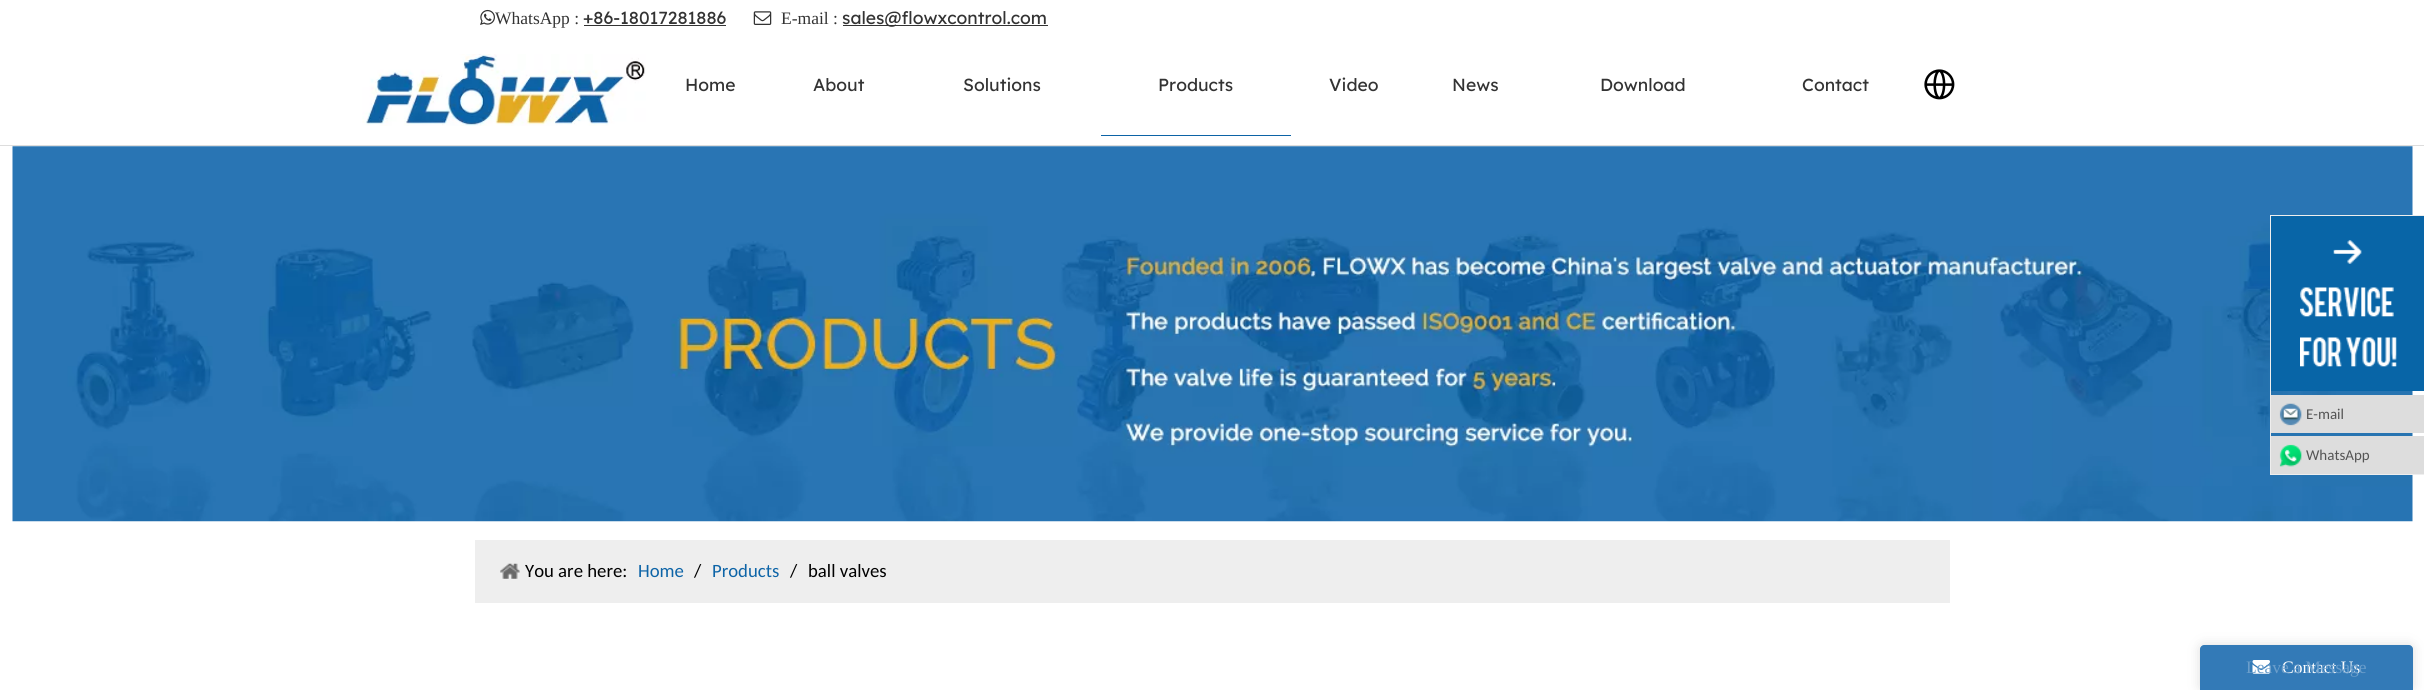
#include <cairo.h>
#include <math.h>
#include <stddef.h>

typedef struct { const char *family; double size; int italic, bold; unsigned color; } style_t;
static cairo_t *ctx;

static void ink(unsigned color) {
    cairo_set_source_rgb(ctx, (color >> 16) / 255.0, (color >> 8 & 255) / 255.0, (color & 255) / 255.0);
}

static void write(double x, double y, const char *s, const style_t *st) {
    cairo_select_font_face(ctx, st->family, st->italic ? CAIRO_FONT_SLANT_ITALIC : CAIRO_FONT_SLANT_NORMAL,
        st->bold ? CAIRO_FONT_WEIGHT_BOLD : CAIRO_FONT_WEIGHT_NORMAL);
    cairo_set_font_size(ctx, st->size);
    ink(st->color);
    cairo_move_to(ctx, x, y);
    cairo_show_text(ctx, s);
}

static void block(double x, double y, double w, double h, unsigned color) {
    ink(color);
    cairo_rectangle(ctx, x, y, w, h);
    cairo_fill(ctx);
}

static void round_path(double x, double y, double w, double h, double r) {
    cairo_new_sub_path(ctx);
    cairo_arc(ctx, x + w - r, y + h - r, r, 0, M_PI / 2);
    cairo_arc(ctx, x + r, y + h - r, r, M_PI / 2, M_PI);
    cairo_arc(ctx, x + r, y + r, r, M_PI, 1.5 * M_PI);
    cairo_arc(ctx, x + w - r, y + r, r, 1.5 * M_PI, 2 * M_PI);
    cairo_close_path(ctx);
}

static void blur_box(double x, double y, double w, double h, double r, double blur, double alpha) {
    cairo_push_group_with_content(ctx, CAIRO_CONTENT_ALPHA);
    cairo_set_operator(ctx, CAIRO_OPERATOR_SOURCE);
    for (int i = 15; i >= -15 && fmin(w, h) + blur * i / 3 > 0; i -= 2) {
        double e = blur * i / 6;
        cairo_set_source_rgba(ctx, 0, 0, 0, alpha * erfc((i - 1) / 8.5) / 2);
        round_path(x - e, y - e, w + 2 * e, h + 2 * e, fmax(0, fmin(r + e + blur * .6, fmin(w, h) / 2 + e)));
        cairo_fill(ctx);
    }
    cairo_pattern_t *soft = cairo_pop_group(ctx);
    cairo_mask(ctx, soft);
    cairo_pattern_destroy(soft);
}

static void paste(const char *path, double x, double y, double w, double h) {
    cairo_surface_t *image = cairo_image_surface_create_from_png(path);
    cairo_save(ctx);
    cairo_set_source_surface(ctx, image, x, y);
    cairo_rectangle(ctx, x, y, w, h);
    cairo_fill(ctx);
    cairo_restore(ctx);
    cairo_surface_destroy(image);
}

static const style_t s1 = {"Liberation Serif", 17.5, 0, 0, 0x333333};
static const style_t s2 = {"Lexend Deca", 17.5, 0, 0, 0x333333};
static const style_t s3 = {"Carlito", 18.75, 0, 0, 0x000000};
static const style_t s4 = {"Carlito", 18.75, 0, 0, 0x0d64a7};
static const style_t s5 = {"Carlito", 15, 0, 0, 0x545454};
static const style_t s6 = {"Liberation Serif", 17.5, 0, 0, 0xffffff};
static const style_t s7 = {"Liberation Serif", 17.5, 0, 0, 0x6b9ecb};

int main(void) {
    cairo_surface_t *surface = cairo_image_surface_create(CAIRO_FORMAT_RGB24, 2424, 690);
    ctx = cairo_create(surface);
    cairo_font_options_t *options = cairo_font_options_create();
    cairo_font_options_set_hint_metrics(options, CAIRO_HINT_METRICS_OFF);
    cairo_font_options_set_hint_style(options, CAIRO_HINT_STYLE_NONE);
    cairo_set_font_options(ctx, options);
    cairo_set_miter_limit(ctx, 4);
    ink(0xffffff);
    cairo_paint(ctx);
    paste("pic1.png", 480, 9, 15, 16);
    write(495, 24, "WhatsApp :", &s1);
    write(583, 24, "+86-18017281886", &s2);
    block(584, 25, 142, 1, 0x333333);
    paste("pic2.png", 753, 11, 19, 14);
    write(781, 24, "E-mail :", &s1);
    block(843, 25, 205, 1, 0x333333);
    write(842, 24, "sales@flowxcontrol.com", &s2);
    block(0, 145, 2424, 1, 0xdddddd);
    paste("pic3.png", 362, 54, 284, 72);
    write(685, 91, "Home", &s2);
    write(813, 91, "About", &s2);
    write(963, 91, "Solutions", &s2);
    block(1101, 135, 190, 1, 0x0c63a6);
    write(1158, 91, "Products", &s2);
    write(1329, 91, "Video", &s2);
    write(1452, 91, "News", &s2);
    write(1600, 91, "Download", &s2);
    write(1802, 91, "Contact", &s2);
    paste("pic4.png", 1924, 69, 31, 31);
    paste("pic5.png", 12, 146, 2401, 376);
    block(475, 540, 1475, 63, 0xeeeeee);
    paste("pic6.png", 500, 563, 20, 16);
    write(525, 577, "You are here:", &s3);
    write(638, 577, "Home", &s4);
    write(694, 577, "/", &s3);
    write(712, 577, "Products", &s4);
    write(790, 577, "/", &s3);
    write(808, 577, "ball valves", &s3);
    cairo_rectangle(ctx, 2270.5, 215.5, 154, 259);
    ink(0xeeeeee);
    cairo_set_line_width(ctx, 1);
    cairo_stroke(ctx);
    block(2271, 216, 153, 175, 0x0865a7);
    paste("pic7.png", 2300, 240, 97, 127);
    block(2271, 395, 153, 38, 0xdddddd);
    paste("pic8.png", 2279, 403, 23, 23);
    write(2306, 419, "E-mail", &s5);
    block(2271, 436, 153, 38, 0xdddddd);
    paste("pic9.png", 2279, 444, 23, 23);
    write(2306, 460, "WhatsApp", &s5);
    ink(0x444444);
    blur_box(2200, 645, 213, 45, 4, 6, 0.18);
    ink(0x337ab7);
    cairo_new_path(ctx);
    cairo_move_to(ctx, 2204, 645);
    cairo_line_to(ctx, 2409, 645);
    cairo_curve_to(ctx, 2411, 645, 2413, 647, 2413, 649);
    cairo_line_to(ctx, 2413, 690);
    cairo_line_to(ctx, 2200, 690);
    cairo_line_to(ctx, 2200, 649);
    cairo_curve_to(ctx, 2200, 647, 2202, 645, 2204, 645);
    cairo_close_path(ctx);
    cairo_fill(ctx);
    paste("pic10.png", 2252, 660, 18, 14);
    write(2282, 673, "Contact Us", &s6);
    write(2246, 673, "Leave a Message", &s7);
    cairo_surface_write_to_png(surface, "screenshot.png");
    cairo_font_options_destroy(options);
    cairo_destroy(ctx);
    cairo_surface_destroy(surface);
    return 0;
}
